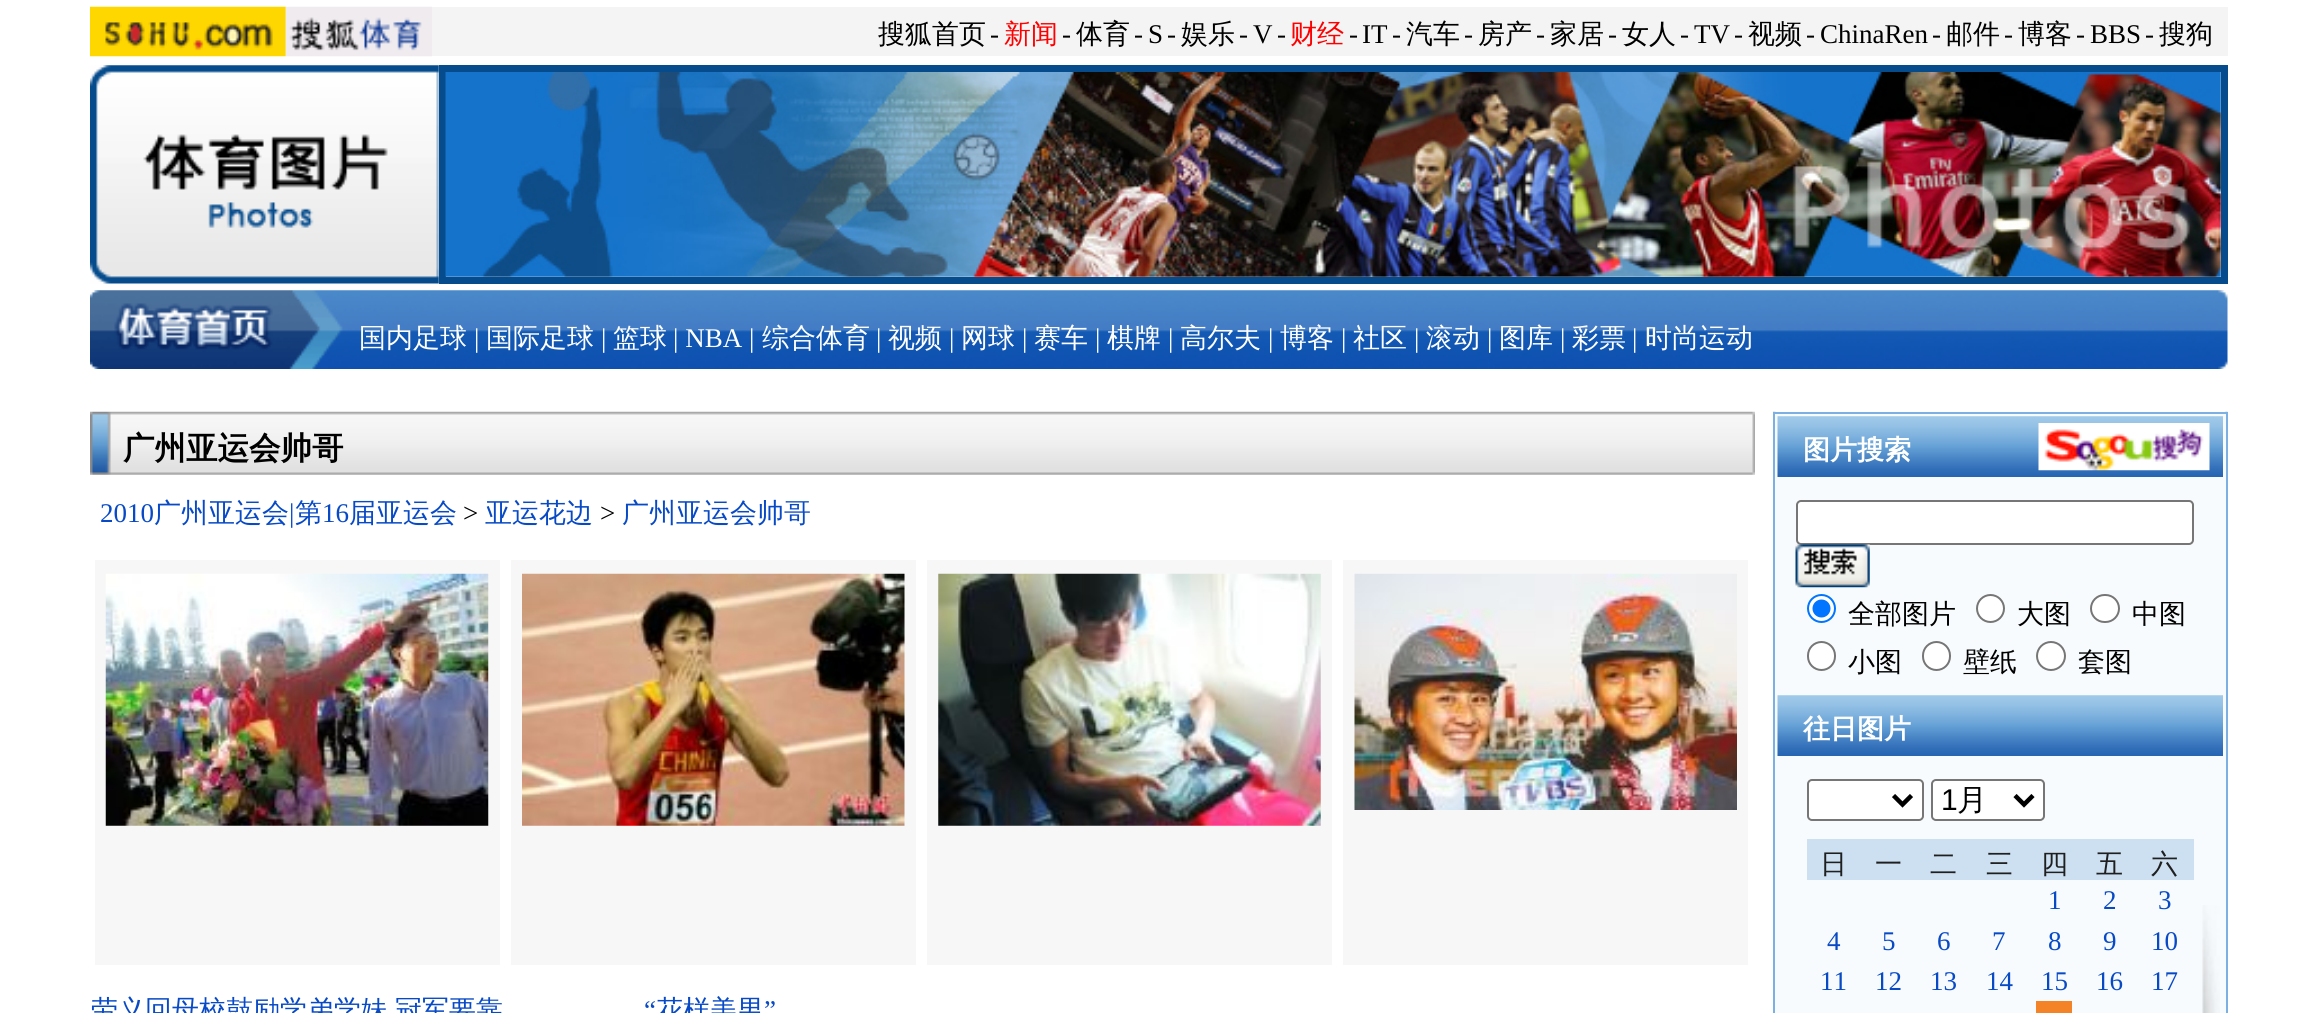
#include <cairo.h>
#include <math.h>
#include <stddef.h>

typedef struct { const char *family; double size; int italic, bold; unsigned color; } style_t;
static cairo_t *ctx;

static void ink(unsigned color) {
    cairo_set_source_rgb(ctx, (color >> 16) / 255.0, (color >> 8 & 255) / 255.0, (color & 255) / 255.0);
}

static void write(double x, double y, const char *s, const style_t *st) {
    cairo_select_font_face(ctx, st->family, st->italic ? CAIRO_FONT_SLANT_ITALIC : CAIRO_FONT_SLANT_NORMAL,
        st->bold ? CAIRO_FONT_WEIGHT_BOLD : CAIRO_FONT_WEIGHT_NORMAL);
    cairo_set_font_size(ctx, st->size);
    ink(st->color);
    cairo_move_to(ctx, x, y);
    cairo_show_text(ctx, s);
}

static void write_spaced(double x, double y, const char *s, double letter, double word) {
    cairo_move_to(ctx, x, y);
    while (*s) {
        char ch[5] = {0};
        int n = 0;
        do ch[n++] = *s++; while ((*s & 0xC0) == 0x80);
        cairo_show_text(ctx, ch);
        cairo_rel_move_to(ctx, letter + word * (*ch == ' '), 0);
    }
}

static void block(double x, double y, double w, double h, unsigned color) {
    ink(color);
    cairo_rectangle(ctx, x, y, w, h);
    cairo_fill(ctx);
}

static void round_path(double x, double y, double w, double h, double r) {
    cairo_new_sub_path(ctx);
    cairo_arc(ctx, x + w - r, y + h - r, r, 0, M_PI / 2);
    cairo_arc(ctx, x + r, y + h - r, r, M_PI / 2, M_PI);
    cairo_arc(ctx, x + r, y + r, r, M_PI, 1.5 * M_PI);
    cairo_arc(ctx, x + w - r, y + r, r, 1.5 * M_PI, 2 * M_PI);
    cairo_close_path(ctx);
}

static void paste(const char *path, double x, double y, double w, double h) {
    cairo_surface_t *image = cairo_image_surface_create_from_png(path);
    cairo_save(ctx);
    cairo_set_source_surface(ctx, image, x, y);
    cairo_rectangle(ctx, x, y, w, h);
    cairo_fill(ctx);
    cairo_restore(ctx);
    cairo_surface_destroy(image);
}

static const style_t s1 = {"WenQuanYi Zen Hei Medium", 27, 0, 0, 0x000000};
static const style_t s2 = {"Liberation Serif", 27, 0, 0, 0x000000};
static const style_t s3 = {"WenQuanYi Zen Hei Medium", 27, 0, 0, 0xff0000};
static const style_t s4 = {"WenQuanYi Zen Hei Medium", 27, 0, 0, 0xffffff};
static const style_t s5 = {"Liberation Serif", 27, 0, 0, 0xffffff};
static const style_t s6 = {"WenQuanYi Zen Hei", 31.5, 0, 1, 0x000000};
static const style_t s7 = {"Liberation Serif", 27, 0, 0, 0x084ac6};
static const style_t s8 = {"WenQuanYi Zen Hei Medium", 27, 0, 0, 0x084ac6};
static const style_t s9 = {"WenQuanYi Zen Hei", 27, 0, 1, 0xffffff};
static const style_t s10 = {"Liberation Sans", 30, 0, 0, 0x000000};
static const style_t s11 = {"WenQuanYi Zen Hei Medium", 30, 0, 0, 0x000000};
static const style_t s12 = {"WenQuanYi Zen Hei Medium", 27, 0, 0, 0x1f1f1f};

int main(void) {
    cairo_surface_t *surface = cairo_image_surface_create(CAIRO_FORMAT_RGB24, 2314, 1013);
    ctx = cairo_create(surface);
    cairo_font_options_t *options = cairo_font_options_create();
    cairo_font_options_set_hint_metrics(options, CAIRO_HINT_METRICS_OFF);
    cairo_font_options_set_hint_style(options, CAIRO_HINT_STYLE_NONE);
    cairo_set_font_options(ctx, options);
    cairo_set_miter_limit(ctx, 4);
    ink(0xffffff);
    cairo_paint(ctx);
    block(285, 7, 1943, 49, 0xf4f4f4);
    paste("pic1.png", 90, 6, 196, 51);
    paste("pic2.png", 285, 6, 147, 51);
    write(878, 43, "搜狐首页", &s1);
    write(990, 43, "-", &s2);
    write(1004, 43, "新闻", &s3);
    write(1062, 43, "-", &s2);
    write(1076, 43, "体育", &s1);
    write(1134, 43, "-", &s2);
    write(1148, 43, "S", &s2);
    write(1167, 43, "-", &s2);
    write(1181, 43, "娱乐", &s1);
    write(1239, 43, "-", &s2);
    write(1253, 43, "V", &s2);
    write(1277, 43, "-", &s2);
    write(1290, 43, "财经", &s3);
    write(1349, 43, "-", &s2);
    write(1362, 43, "IT", &s2);
    write(1392, 43, "-", &s2);
    write(1406, 43, "汽车", &s1);
    write(1464, 43, "-", &s2);
    write(1478, 43, "房产", &s1);
    write(1536, 43, "-", &s2);
    write(1550, 43, "家居", &s1);
    write(1608, 43, "-", &s2);
    write(1622, 43, "女人", &s1);
    write(1680, 43, "-", &s2);
    write(1694, 43, "TV", &s2);
    write(1734, 43, "-", &s2);
    write(1748, 43, "视频", &s1);
    write(1806, 43, "-", &s2);
    write(1820, 43, "ChinaRen", &s2);
    write(1932, 43, "-", &s2);
    write(1946, 43, "邮件", &s1);
    write(2004, 43, "-", &s2);
    write(2018, 43, "博客", &s1);
    write(2076, 43, "-", &s2);
    write(2090, 43, "BBS", &s2);
    write(2145, 43, "-", &s2);
    write(2159, 43, "搜狗", &s1);
    paste("pic3.png", 90, 65, 349, 219);
    cairo_rectangle(ctx, 442.5, 68.5, 1782, 212);
    ink(0x064c8d);
    cairo_set_line_width(ctx, 7);
    cairo_stroke(ctx);
    paste("pic4.png", 445, 72, 1776, 205);
    paste("pic5.png", 90, 290, 2138, 79);
    write(359, 347, "国内足球", &s4);
    write(474, 347, "|", &s5);
    write(486, 347, "国际足球", &s4);
    write(601, 347, "|", &s5);
    write(613, 347, "篮球", &s4);
    write(673, 347, "| NBA |", &s5);
    write(762, 347, "综合体育", &s4);
    write(876, 347, "|", &s5);
    write(888, 347, "视频", &s4);
    write(949, 347, "|", &s5);
    write(961, 347, "网球", &s4);
    write(1022, 347, "|", &s5);
    write(1034, 347, "赛车", &s4);
    write(1095, 347, "|", &s5);
    write(1107, 347, "棋牌", &s4);
    write(1168, 347, "|", &s5);
    write(1180, 347, "高尔夫", &s4);
    write(1268, 347, "|", &s5);
    write(1280, 347, "博客", &s4);
    write(1341, 347, "|", &s5);
    write(1353, 347, "社区", &s4);
    write(1414, 347, "|", &s5);
    write(1426, 347, "滚动", &s4);
    write(1487, 347, "|", &s5);
    write(1499, 347, "图库", &s4);
    write(1560, 347, "|", &s5);
    write(1572, 347, "彩票", &s4);
    write(1632, 347, "|", &s5);
    write(1645, 347, "时尚运动", &s4);
    paste("pic6.png", 90, 411, 1665, 64);
    write(123, 459, "广州亚运会帅哥", &s6);
    write(100, 522, "2010", &s7);
    write(154, 522, "广州亚运会", &s8);
    write(289, 522, "|", &s7);
    write(295, 522, "第", &s8);
    write(322, 522, "16", &s7);
    write(349, 522, "届亚运会", &s8);
    write(463, 522, ">", &s2);
    write(485, 522, "亚运花边", &s8);
    write(600, 522, ">", &s2);
    write(622, 522, "广州亚运会帅哥", &s8);
    block(927, 560, 405, 405, 0xf7f7f7);
    paste("pic7.png", 938, 573, 383, 253);
    block(1343, 560, 405, 405, 0xf7f7f7);
    paste("pic8.png", 1354, 573, 383, 237);
    block(95, 560, 405, 405, 0xf7f7f7);
    paste("pic9.png", 105, 573, 384, 253);
    ink(0x084ac6);
    write_spaced(91, 1019, "劳义回母校鼓励学弟学妹 冠军要靠", 0, -1);
    block(511, 560, 405, 405, 0xf7f7f7);
    paste("pic10.png", 522, 573, 383, 253);
    write(644, 1019, "“", &s7);
    write(656, 1019, "花样美男", &s8);
    write(764, 1019, "”", &s7);
    paste("pic11.png", 1773, 411, 455, 1);
    ink(0xf8fbfd);
    cairo_rectangle(ctx, 1774, 413, 453, 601);
    cairo_fill_preserve(ctx);
    ink(0x7cb0e2);
    cairo_set_line_width(ctx, 2);
    cairo_stroke(ctx);
    paste("pic12.png", 1777, 416, 446, 61);
    write(1803, 459, "图片搜索", &s9);
    paste("pic13.png", 2038, 423, 172, 48);
    round_path(1797, 501, 396, 43, 4);
    cairo_fill_preserve(ctx);
    ink(0x767676);
    cairo_stroke(ctx);
    paste("pic14.png", 1795, 544, 75, 44);
    ink(0xffffff);
    cairo_arc(ctx, 1821.5, 608.5, 13.5, 0, 2 * M_PI);
    cairo_fill_preserve(ctx);
    ink(0x0075ff);
    cairo_stroke(ctx);
    cairo_arc(ctx, 1821.5, 608.5, 9, 0, 2 * M_PI);
    cairo_fill(ctx);
    write(1848, 623, "全部图片", &s1);
    ink(0xffffff);
    cairo_new_path(ctx);
    cairo_arc(ctx, 1990.5, 608.5, 13.5, 0, 2 * M_PI);
    cairo_fill_preserve(ctx);
    ink(0x767676);
    cairo_stroke(ctx);
    write(2017, 623, "大图", &s1);
    ink(0xffffff);
    round_path(2091, 595, 28, 27, 13.5);
    cairo_fill_preserve(ctx);
    ink(0x767676);
    cairo_stroke(ctx);
    write(2132, 623, "中图", &s1);
    ink(0xffffff);
    round_path(1808, 642, 27, 28, 13.5);
    cairo_fill_preserve(ctx);
    ink(0x767676);
    cairo_stroke(ctx);
    write(1848, 671, "小图", &s1);
    ink(0xffffff);
    round_path(1923, 642, 27, 28, 13.5);
    cairo_fill_preserve(ctx);
    ink(0x767676);
    cairo_stroke(ctx);
    write(1963, 671, "壁纸", &s1);
    ink(0xffffff);
    cairo_new_path(ctx);
    cairo_arc(ctx, 2051, 656, 14, 0, 2 * M_PI);
    cairo_fill_preserve(ctx);
    ink(0x767676);
    cairo_stroke(ctx);
    write(2078, 671, "套图", &s1);
    paste("pic12.png", 1777, 695, 446, 61);
    write(1803, 738, "往日图片", &s9);
    round_path(1808, 780, 115, 40, 4);
    cairo_fill_preserve(ctx);
    ink(0x767676);
    cairo_stroke(ctx);
    cairo_new_path(ctx);
    cairo_move_to(ctx, 1893.5, 795.5);
    cairo_line_to(ctx, 1902.5, 804.5);
    cairo_line_to(ctx, 1911.5, 795.5);
    ink(0x000000);
    cairo_set_line_width(ctx, 4.5);
    cairo_stroke(ctx);
    ink(0xffffff);
    round_path(1932, 780, 112, 40, 4);
    cairo_fill_preserve(ctx);
    ink(0x767676);
    cairo_set_line_width(ctx, 2);
    cairo_stroke(ctx);
    cairo_new_path(ctx);
    cairo_move_to(ctx, 2015, 795.5);
    cairo_line_to(ctx, 2024, 804.5);
    cairo_line_to(ctx, 2033, 795.5);
    ink(0x000000);
    cairo_set_line_width(ctx, 4.5);
    cairo_stroke(ctx);
    write(1941, 810, "1", &s10);
    write(1957, 810, "月", &s11);
    paste("pic15.png", 2202, 905, 18, 108);
    block(1807, 839, 387, 41, 0xcce0f1);
    write(1820, 873, "日", &s12);
    write(1875, 873, "一", &s12);
    write(1930, 873, "二", &s12);
    write(1986, 873, "三", &s12);
    write(2041, 873, "四", &s12);
    write(2096, 873, "五", &s12);
    write(2151, 873, "六", &s12);
    write(2048, 909, "1", &s7);
    write(2103, 909, "2", &s7);
    write(2158, 909, "3", &s7);
    write(1827, 950, "4", &s7);
    write(1882, 950, "5", &s7);
    write(1937, 950, "6", &s7);
    write(1992, 950, "7", &s7);
    write(2048, 950, "8", &s7);
    write(2103, 950, "9", &s7);
    write(2151, 950, "10", &s7);
    write(1820, 990, "11", &s7);
    write(1875, 990, "12", &s7);
    write(1930, 990, "13", &s7);
    write(1986, 990, "14", &s7);
    write(2041, 990, "15", &s7);
    write(2096, 990, "16", &s7);
    write(2151, 990, "17", &s7);
    block(2036, 1001, 36, 12, 0xf48327);
    cairo_surface_write_to_png(surface, "screenshot.png");
    cairo_font_options_destroy(options);
    cairo_destroy(ctx);
    cairo_surface_destroy(surface);
    return 0;
}
